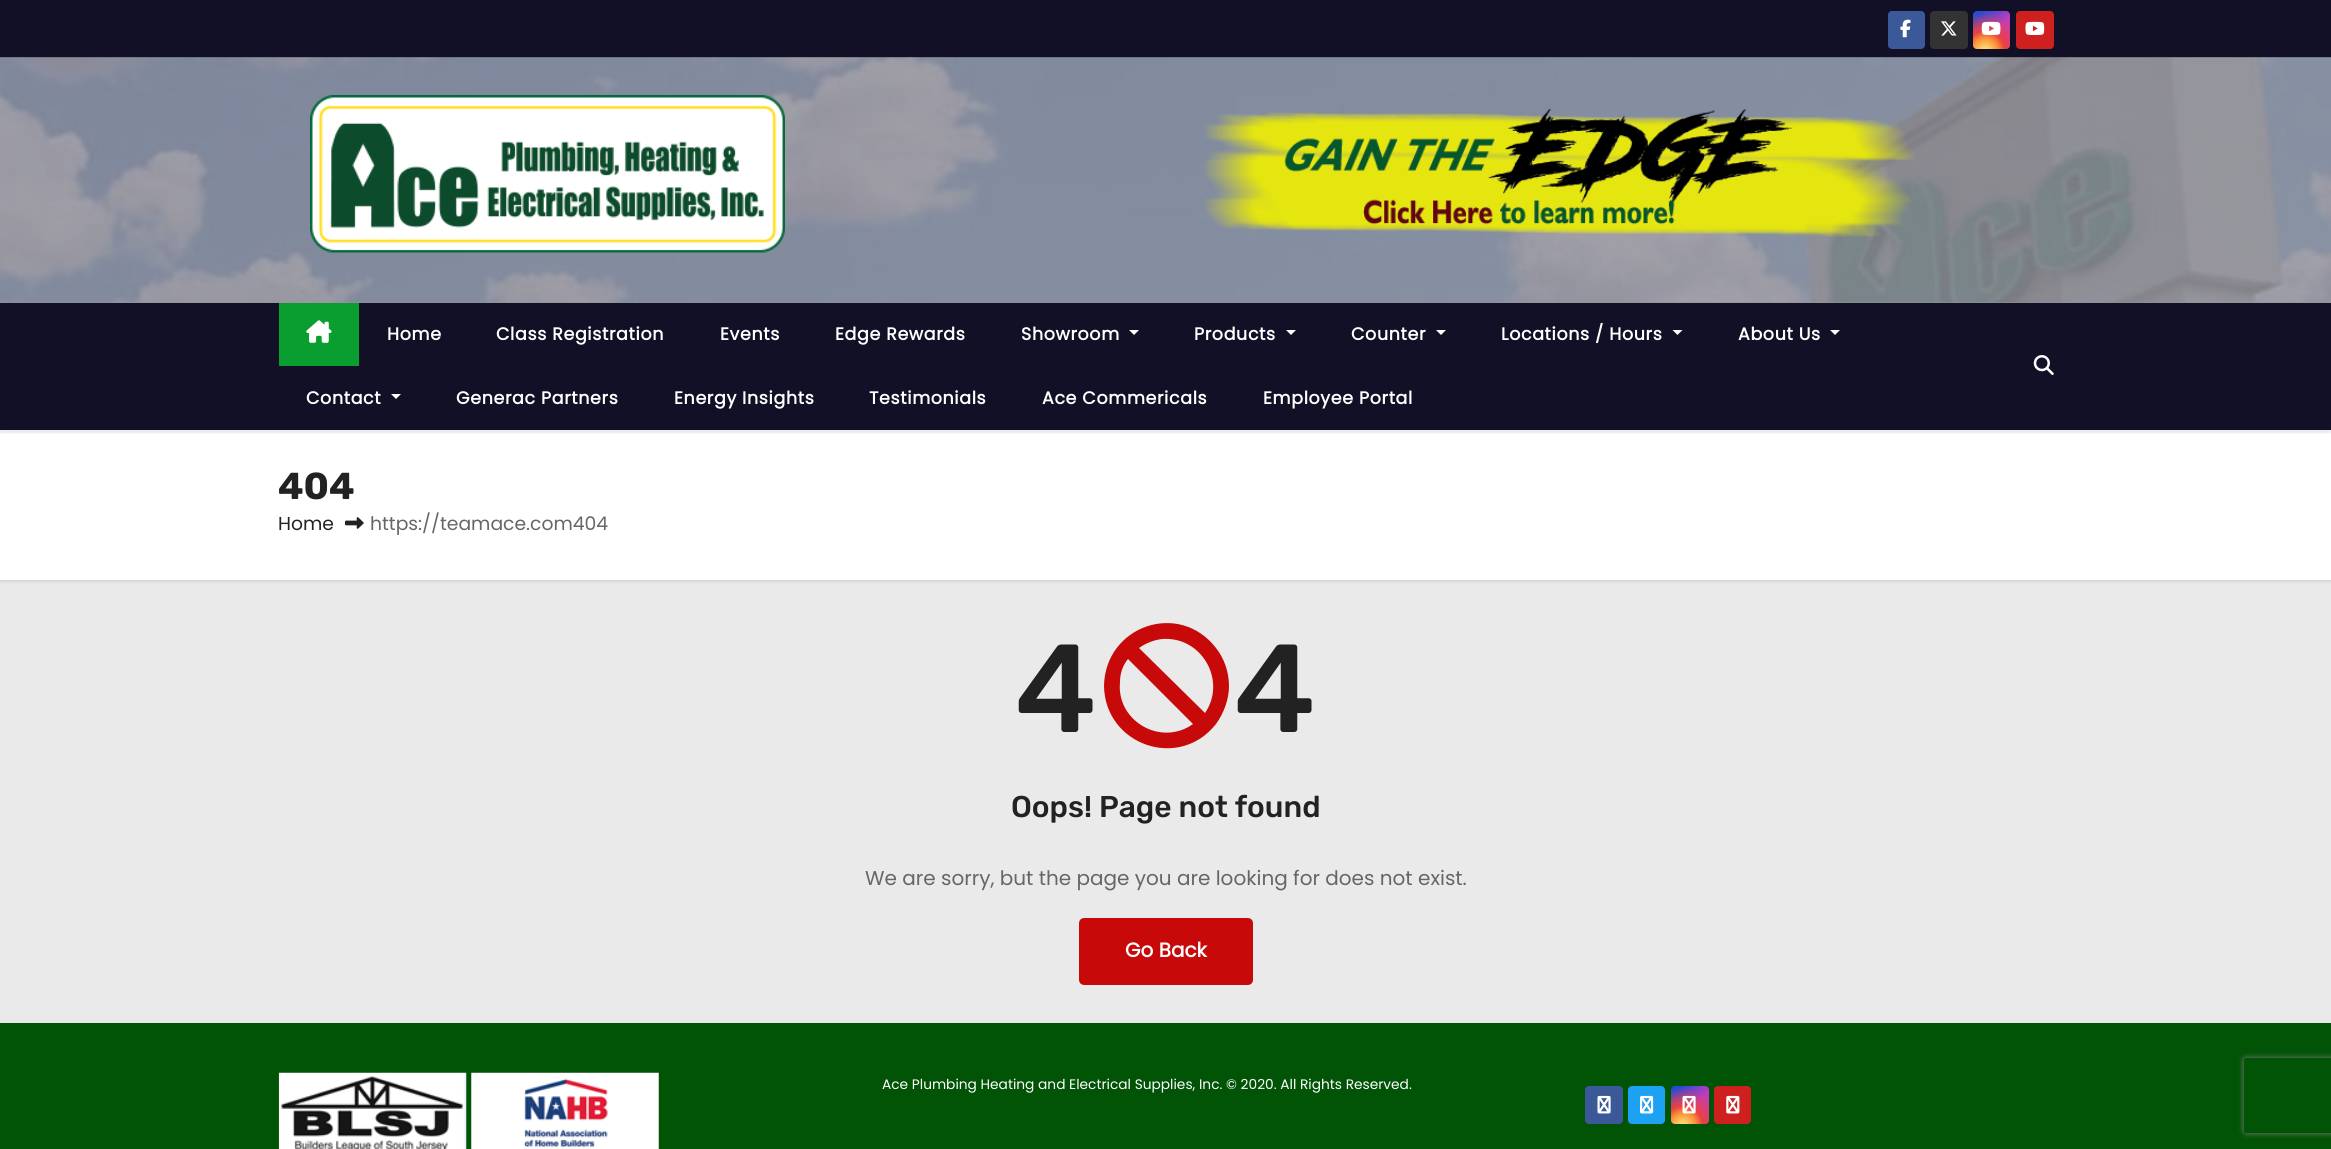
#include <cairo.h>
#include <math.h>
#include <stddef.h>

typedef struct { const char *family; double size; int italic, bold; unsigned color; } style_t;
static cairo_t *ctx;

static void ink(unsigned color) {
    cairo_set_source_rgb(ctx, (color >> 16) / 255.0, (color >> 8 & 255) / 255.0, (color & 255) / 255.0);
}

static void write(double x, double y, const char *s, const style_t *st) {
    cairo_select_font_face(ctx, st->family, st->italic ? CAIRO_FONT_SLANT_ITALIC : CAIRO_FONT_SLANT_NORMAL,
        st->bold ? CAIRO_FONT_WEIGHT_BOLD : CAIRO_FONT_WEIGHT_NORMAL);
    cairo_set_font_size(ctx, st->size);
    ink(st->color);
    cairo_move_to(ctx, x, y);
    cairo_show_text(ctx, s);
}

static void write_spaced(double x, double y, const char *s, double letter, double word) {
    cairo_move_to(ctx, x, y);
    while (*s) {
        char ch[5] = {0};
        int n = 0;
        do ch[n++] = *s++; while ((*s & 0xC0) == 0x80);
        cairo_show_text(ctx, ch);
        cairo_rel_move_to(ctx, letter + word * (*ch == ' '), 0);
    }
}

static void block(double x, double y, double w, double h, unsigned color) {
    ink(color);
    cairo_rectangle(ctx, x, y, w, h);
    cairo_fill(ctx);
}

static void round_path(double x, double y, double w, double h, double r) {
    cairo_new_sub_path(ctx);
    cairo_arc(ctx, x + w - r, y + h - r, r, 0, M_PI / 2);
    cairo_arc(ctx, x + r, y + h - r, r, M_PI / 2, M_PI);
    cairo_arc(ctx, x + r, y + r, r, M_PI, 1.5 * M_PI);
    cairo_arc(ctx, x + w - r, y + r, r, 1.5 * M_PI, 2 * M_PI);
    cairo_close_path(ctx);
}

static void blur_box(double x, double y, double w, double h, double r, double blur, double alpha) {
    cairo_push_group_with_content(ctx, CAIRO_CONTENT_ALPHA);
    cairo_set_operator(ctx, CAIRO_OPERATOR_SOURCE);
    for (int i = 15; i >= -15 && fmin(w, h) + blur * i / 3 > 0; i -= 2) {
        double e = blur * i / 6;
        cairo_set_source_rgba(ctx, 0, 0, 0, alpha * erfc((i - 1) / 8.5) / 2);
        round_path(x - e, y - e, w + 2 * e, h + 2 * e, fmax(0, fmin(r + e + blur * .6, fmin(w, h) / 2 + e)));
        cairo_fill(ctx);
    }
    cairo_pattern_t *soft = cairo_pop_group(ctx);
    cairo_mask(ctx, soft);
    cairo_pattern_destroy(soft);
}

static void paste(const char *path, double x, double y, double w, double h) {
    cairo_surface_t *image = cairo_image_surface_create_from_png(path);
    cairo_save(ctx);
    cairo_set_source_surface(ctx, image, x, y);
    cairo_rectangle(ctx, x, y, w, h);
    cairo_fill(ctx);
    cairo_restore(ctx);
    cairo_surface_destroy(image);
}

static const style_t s1 = {"Rubik", 37.5, 0, 1, 0x222222};
static const style_t s2 = {"Poppins", 18.75, 0, 0, 0x222222};
static const style_t s3 = {"Poppins", 18.75, 0, 0, 0x666666};
static const style_t s4 = {"Rubik Medium", 125, 0, 0, 0x222222};
static const style_t s5 = {"Rubik Medium", 30, 0, 0, 0x222222};
static const style_t s6 = {"Poppins", 20, 0, 0, 0x666666};
static const style_t s7 = {"Poppins", 20, 0, 1, 0xffffff};
static const style_t s8 = {"Poppins", 13.75, 0, 0, 0xffffff};

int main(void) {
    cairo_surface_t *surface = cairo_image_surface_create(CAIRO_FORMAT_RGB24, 2331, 1149);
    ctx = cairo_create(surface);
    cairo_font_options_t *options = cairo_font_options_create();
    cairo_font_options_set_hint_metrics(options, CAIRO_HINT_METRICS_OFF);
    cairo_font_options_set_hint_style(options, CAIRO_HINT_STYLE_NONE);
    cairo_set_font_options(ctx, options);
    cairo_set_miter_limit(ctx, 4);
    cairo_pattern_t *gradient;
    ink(0xeaeaea);
    cairo_paint(ctx);
    block(0, 302, 2331, 1, 0x94939c);
    block(0, 0, 2331, 58, 0x121026);
    ink(0x3b5998);
    round_path(1888, 11, 37, 38, 4);
    cairo_fill(ctx);
    paste("pic1.png", 1900, 19, 11, 19);
    ink(0x333333);
    round_path(1930, 11, 38, 38, 4);
    cairo_fill(ctx);
    paste("pic2.png", 1941, 21, 16, 15);
    gradient = cairo_pattern_create_linear(1973, 11, 2010, 49);
    cairo_pattern_add_color_stop_rgba(gradient, 0.12, 0.137, 0.294, 0.843, 1);
    cairo_pattern_add_color_stop_rgba(gradient, 0.58, 0.765, 0.235, 0.745, 1);
    cairo_set_source(ctx, gradient);
    cairo_pattern_destroy(gradient);
    round_path(1973, 11, 37, 38, 4);
    cairo_fill(ctx);
    gradient = cairo_pattern_create_radial(1985, 51, 0, 1985, 51, 47);
    cairo_pattern_add_color_stop_rgba(gradient, 0, 1, 0.882, 0.49, 1);
    cairo_pattern_add_color_stop_rgba(gradient, 0.1, 1, 0.804, 0.412, 1);
    cairo_pattern_add_color_stop_rgba(gradient, 0.28, 0.98, 0.569, 0.216, 1);
    cairo_pattern_add_color_stop_rgba(gradient, 0.42, 0.922, 0.255, 0.255, 1);
    cairo_pattern_add_color_stop_rgba(gradient, 0.82, 0.922, 0.255, 0.255, 0);
    cairo_set_source(ctx, gradient);
    cairo_pattern_destroy(gradient);
    round_path(1973, 11, 37, 38, 4);
    cairo_fill(ctx);
    paste("pic3.png", 1981, 21, 20, 14);
    ink(0xcd201f);
    round_path(2016, 11, 38, 38, 4);
    cairo_fill(ctx);
    paste("pic4.png", 2025, 21, 20, 14);
    paste("pic5.png", 0, 57, 2331, 246);
    paste("pic6.png", 310, 95, 475, 158);
    paste("pic7.png", 1204, 108, 711, 129);
    ink(0x000000);
    blur_box(0, 431, 2331, 150, 0, 2, 0.15);
    block(0, 430, 2331, 150, 0xffffff);
    ink(0x000000);
    blur_box(0, 305, 2331, 128, 0, 1, 0.08);
    block(0, 303, 2331, 127, 0x121026);
    block(279, 303, 80, 63, 0x0a9e31);
    paste("pic8.png", 306, 320, 26, 23);
    cairo_select_font_face(ctx, "Poppins", CAIRO_FONT_SLANT_NORMAL, CAIRO_FONT_WEIGHT_BOLD);
    cairo_set_font_size(ctx, 17.5);
    ink(0xffffff);
    write_spaced(387, 340, "Home", 0.6, 0);
    write_spaced(496, 340, "Class Registration", 0.6, 0);
    write_spaced(720, 340, "Events", 0.6, 0);
    write_spaced(835, 340, "Edge Rewards", 0.6, 0);
    write_spaced(1021, 340, "Showroom", 0.6, 0);
    cairo_new_path(ctx);
    cairo_move_to(ctx, 1129, 330);
    cairo_line_to(ctx, 1139, 330);
    cairo_line_to(ctx, 1134, 335);
    cairo_close_path(ctx);
    cairo_fill(ctx);
    write_spaced(1194, 340, "Products", 0.6, 0);
    cairo_new_path(ctx);
    cairo_move_to(ctx, 1286, 330);
    cairo_line_to(ctx, 1296, 330);
    cairo_line_to(ctx, 1291, 335);
    cairo_close_path(ctx);
    cairo_fill(ctx);
    write_spaced(1351, 340, "Counter", 0.6, 0);
    cairo_new_path(ctx);
    cairo_move_to(ctx, 1436, 330);
    cairo_line_to(ctx, 1446, 330);
    cairo_line_to(ctx, 1441, 335);
    cairo_close_path(ctx);
    cairo_fill(ctx);
    write_spaced(1501, 340, "Locations / Hours", 0.6, 0);
    cairo_new_path(ctx);
    cairo_move_to(ctx, 1672.5, 330);
    cairo_line_to(ctx, 1682.5, 330);
    cairo_line_to(ctx, 1677.5, 335);
    cairo_close_path(ctx);
    cairo_fill(ctx);
    write_spaced(1738, 340, "About Us", 0.6, 0);
    cairo_new_path(ctx);
    cairo_move_to(ctx, 1830, 330);
    cairo_line_to(ctx, 1840, 330);
    cairo_line_to(ctx, 1835, 335);
    cairo_close_path(ctx);
    cairo_fill(ctx);
    write_spaced(306, 404, "Contact", 0.6, 0);
    cairo_new_path(ctx);
    cairo_move_to(ctx, 391, 394);
    cairo_line_to(ctx, 401, 394);
    cairo_line_to(ctx, 396, 399);
    cairo_close_path(ctx);
    cairo_fill(ctx);
    write_spaced(456, 404, "Generac Partners", 0.6, 0);
    write_spaced(674, 404, "Energy Insights", 0.6, 0);
    write_spaced(869, 404, "Testimonials", 0.6, 0);
    write_spaced(1042, 404, "Ace Commericals", 0.6, 0);
    write_spaced(1263, 404, "Employee Portal", 0.6, 0);
    paste("pic9.png", 2033, 355, 21, 20);
    write(278, 499, "404", &s1);
    write(278, 530, "Home", &s2);
    paste("pic10.png", 345, 517, 19, 12);
    write(370, 530, "https://teamace.com404", &s3);
    write(1015, 732, "4", &s4);
    ink(0xc70909);
    cairo_new_path(ctx);
    cairo_move_to(ctx, 1193, 724);
    cairo_line_to(ctx, 1128, 659);
    cairo_curve_to(ctx, 1123, 665, 1120, 673, 1120, 682);
    cairo_curve_to(ctx, 1116, 721, 1161, 747, 1193, 724);
    cairo_close_path(ctx);
    cairo_move_to(ctx, 1205, 713);
    cairo_curve_to(ctx, 1227, 681, 1202, 636, 1162, 639);
    cairo_curve_to(ctx, 1154, 640, 1146, 643, 1139, 648);
    cairo_close_path(ctx);
    cairo_move_to(ctx, 1104, 686);
    cairo_curve_to(ctx, 1105, 626, 1179, 600, 1216, 648);
    cairo_curve_to(ctx, 1224, 658, 1229, 672, 1229, 686);
    cairo_curve_to(ctx, 1229, 699, 1224, 713, 1216, 724);
    cairo_curve_to(ctx, 1179, 771, 1105, 745, 1104, 686);
    cairo_close_path(ctx);
    cairo_fill(ctx);
    write(1234, 732, "4", &s4);
    write(1011, 817, "Oops! Page not found", &s5);
    write(865, 885, "We are sorry, but the page you are looking for does not exist.", &s6);
    ink(0xc70909);
    round_path(1080.5, 919.5, 171, 64, 3.5);
    cairo_fill_preserve(ctx);
    cairo_set_line_width(ctx, 3);
    cairo_stroke(ctx);
    write(1125, 957, "Go Back", &s7);
    block(0, 1023, 2331, 126, 0x015306);
    paste("pic11.png", 278, 1072, 189, 77);
    paste("pic12.png", 471, 1072, 188, 77);
    write(882, 1089, "Ace Plumbing Heating and Electrical Supplies, Inc. © 2020. All Rights Reserved.", &s8);
    ink(0x3b5998);
    round_path(1585, 1086, 38, 38, 4);
    cairo_fill(ctx);
    paste("pic13.png", 1597, 1095, 14, 19);
    ink(0x1da1f2);
    round_path(1628, 1086, 37, 38, 4);
    cairo_fill(ctx);
    paste("pic14.png", 1640, 1095, 14, 19);
    gradient = cairo_pattern_create_linear(1671, 1086, 1709, 1124);
    cairo_pattern_add_color_stop_rgba(gradient, 0.12, 0.137, 0.294, 0.843, 1);
    cairo_pattern_add_color_stop_rgba(gradient, 0.58, 0.765, 0.235, 0.745, 1);
    cairo_set_source(ctx, gradient);
    cairo_pattern_destroy(gradient);
    round_path(1671, 1086, 38, 38, 4);
    cairo_fill(ctx);
    gradient = cairo_pattern_create_radial(1683, 1126, 0, 1683, 1126, 47);
    cairo_pattern_add_color_stop_rgba(gradient, 0, 1, 0.882, 0.49, 1);
    cairo_pattern_add_color_stop_rgba(gradient, 0.1, 1, 0.804, 0.412, 1);
    cairo_pattern_add_color_stop_rgba(gradient, 0.28, 0.98, 0.569, 0.216, 1);
    cairo_pattern_add_color_stop_rgba(gradient, 0.42, 0.922, 0.255, 0.255, 1);
    cairo_pattern_add_color_stop_rgba(gradient, 0.82, 0.922, 0.255, 0.255, 0);
    cairo_set_source(ctx, gradient);
    cairo_pattern_destroy(gradient);
    round_path(1671, 1086, 38, 38, 4);
    cairo_fill(ctx);
    paste("pic15.png", 1682, 1095, 14, 19);
    ink(0xcd201f);
    round_path(1714, 1086, 37, 38, 4);
    cairo_fill(ctx);
    paste("pic16.png", 1726, 1095, 14, 19);
    cairo_save(ctx);
    cairo_set_fill_rule(ctx, CAIRO_FILL_RULE_EVEN_ODD);
    cairo_new_path(ctx);
    cairo_move_to(ctx, 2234, 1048);
    cairo_line_to(ctx, 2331, 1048);
    cairo_line_to(ctx, 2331, 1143);
    cairo_line_to(ctx, 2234, 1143);
    cairo_close_path(ctx);
    cairo_move_to(ctx, 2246.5, 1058);
    cairo_line_to(ctx, 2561.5, 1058);
    cairo_curve_to(ctx, 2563, 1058, 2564, 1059, 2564, 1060.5);
    cairo_line_to(ctx, 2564, 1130.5);
    cairo_curve_to(ctx, 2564, 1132, 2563, 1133, 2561.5, 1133);
    cairo_line_to(ctx, 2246.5, 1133);
    cairo_curve_to(ctx, 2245, 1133, 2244, 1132, 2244, 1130.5);
    cairo_line_to(ctx, 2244, 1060.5);
    cairo_curve_to(ctx, 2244, 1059, 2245, 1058, 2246.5, 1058);
    cairo_close_path(ctx);
    cairo_clip(ctx);
    ink(0x808080);
    blur_box(2244, 1058, 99, 75, 2.5, 3, 1);
    cairo_restore(ctx);
    cairo_surface_write_to_png(surface, "screenshot.png");
    cairo_font_options_destroy(options);
    cairo_destroy(ctx);
    cairo_surface_destroy(surface);
    return 0;
}
